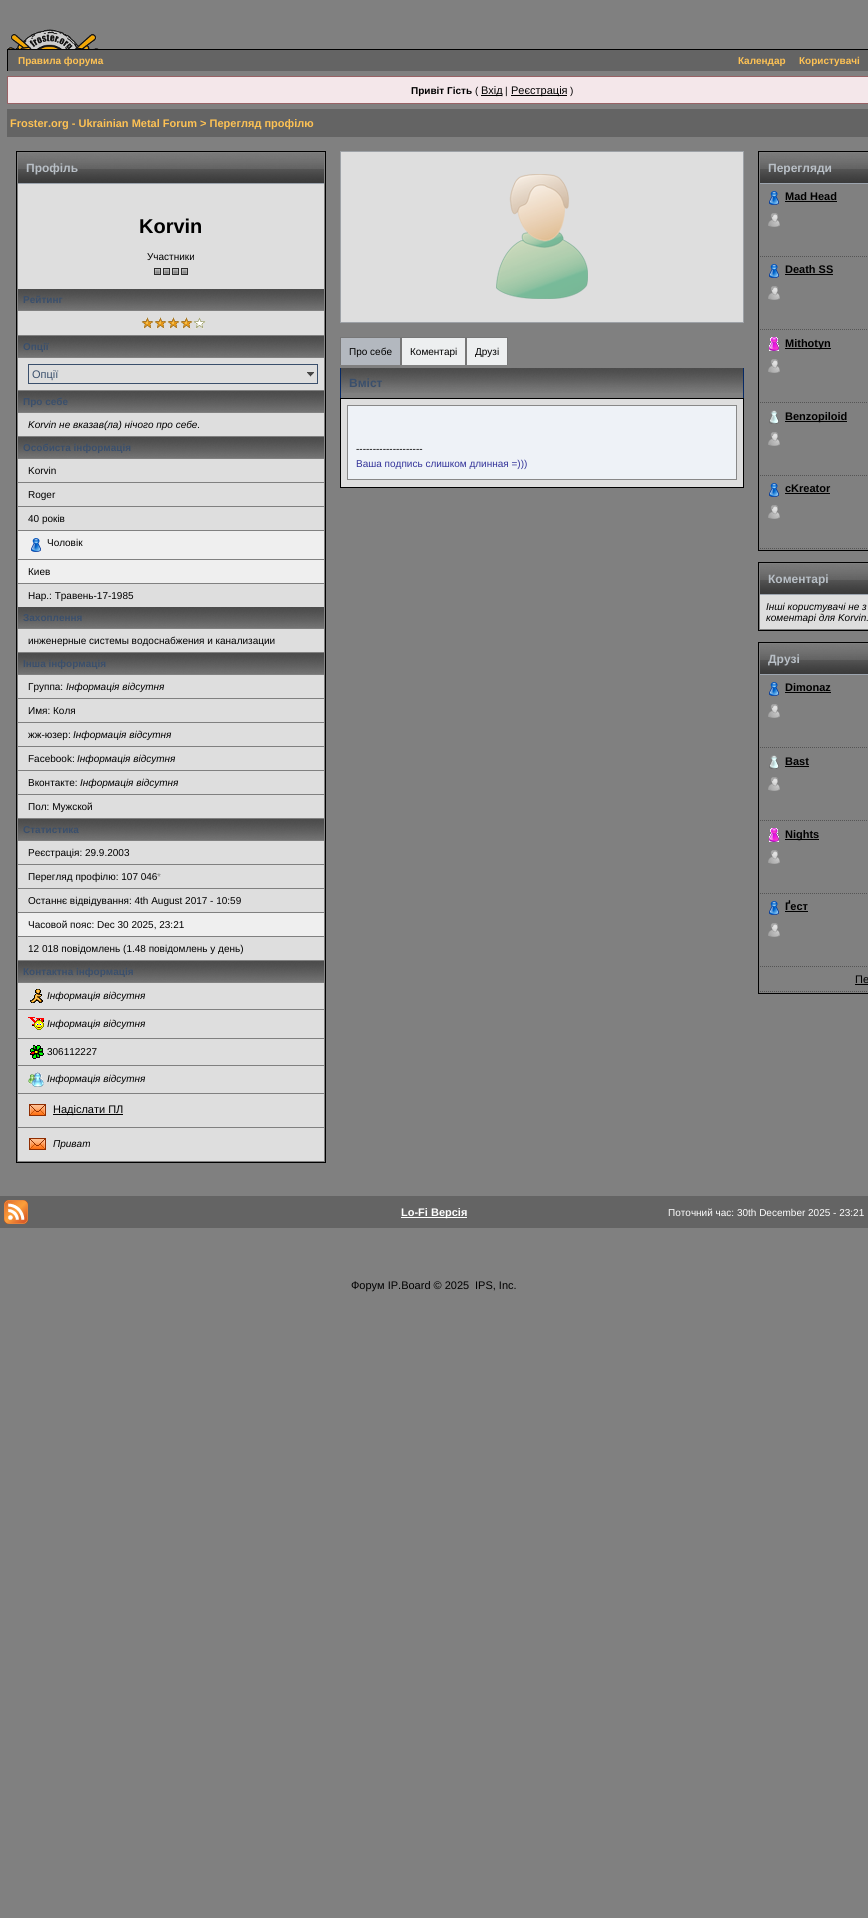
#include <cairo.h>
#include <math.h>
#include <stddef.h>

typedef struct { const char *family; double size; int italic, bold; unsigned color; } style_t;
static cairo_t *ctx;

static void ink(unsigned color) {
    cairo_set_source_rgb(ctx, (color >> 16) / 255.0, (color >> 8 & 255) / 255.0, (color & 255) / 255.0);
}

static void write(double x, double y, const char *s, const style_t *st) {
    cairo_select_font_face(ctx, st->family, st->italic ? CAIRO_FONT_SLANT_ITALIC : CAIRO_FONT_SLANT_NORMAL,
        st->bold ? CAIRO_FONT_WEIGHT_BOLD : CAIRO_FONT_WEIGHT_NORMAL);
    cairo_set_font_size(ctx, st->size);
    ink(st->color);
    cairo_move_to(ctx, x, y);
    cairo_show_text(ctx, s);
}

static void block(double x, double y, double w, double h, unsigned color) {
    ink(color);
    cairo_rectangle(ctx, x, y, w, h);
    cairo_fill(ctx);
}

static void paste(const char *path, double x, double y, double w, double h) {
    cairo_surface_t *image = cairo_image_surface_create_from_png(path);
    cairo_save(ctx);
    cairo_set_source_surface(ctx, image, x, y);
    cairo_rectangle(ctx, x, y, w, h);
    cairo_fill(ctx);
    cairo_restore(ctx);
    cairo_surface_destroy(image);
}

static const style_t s1 = {"Liberation Sans", 10, 0, 1, 0xfec254};
static const style_t s2 = {"Liberation Sans", 10, 0, 1, 0x000000};
static const style_t s3 = {"Liberation Sans", 10, 0, 0, 0x000000};
static const style_t s4 = {"Liberation Sans", 11, 0, 0, 0x000000};
static const style_t s5 = {"Liberation Sans", 11, 0, 1, 0xfec254};
static const style_t s6 = {"Liberation Sans", 12, 0, 1, 0xb8bfc6};
static const style_t s7 = {"Liberation Sans", 20, 0, 1, 0x000000};
static const style_t s8 = {"Liberation Sans", 10, 0, 1, 0x3a4f6c};
static const style_t s9 = {"Liberation Sans", 11, 0, 0, 0x3a4f6c};
static const style_t s10 = {"Liberation Sans", 10, 1, 0, 0x000000};
static const style_t s11 = {"Liberation Sans", 10, 0, 0, 0x808080};
static const style_t s12 = {"Liberation Sans", 12, 0, 1, 0x3a4f6c};
static const style_t s13 = {"Liberation Sans", 10, 0, 0, 0x333399};
static const style_t s14 = {"Liberation Sans", 11, 0, 1, 0x000000};
static const style_t s15 = {"Liberation Sans", 11, 0, 1, 0xffffff};
static const style_t s16 = {"Liberation Sans", 10, 0, 0, 0xffffff};

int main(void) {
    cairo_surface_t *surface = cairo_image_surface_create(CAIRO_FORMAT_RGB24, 868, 1918);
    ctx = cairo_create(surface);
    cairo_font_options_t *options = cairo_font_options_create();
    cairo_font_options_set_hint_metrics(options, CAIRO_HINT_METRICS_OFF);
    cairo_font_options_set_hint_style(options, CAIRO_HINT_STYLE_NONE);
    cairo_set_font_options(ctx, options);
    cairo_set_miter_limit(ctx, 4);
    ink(0x808080);
    cairo_paint(ctx);
    paste("pic1.png", 8, 29, 91, 20);
    block(8, 50, 860, 21, 0x646464);
    block(7, 49, 861, 1, 0x000000);
    block(7, 49, 1, 22, 0x000000);
    write(18, 64, "Правила форума", &s1);
    write(738, 64, "Календар", &s1);
    write(799, 64, "Користувачі", &s1);
    ink(0xf4e7ea);
    cairo_rectangle(ctx, 7.5, 76.5, 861, 27);
    cairo_fill_preserve(ctx);
    ink(0x986265);
    cairo_set_line_width(ctx, 1);
    cairo_stroke(ctx);
    write(411, 94, "Привіт Гість", &s2);
    write(475, 94, "(", &s3);
    block(481, 95, 21, 1, 0x000000);
    write(481, 94, "Вхід", &s4);
    write(505, 94, "|", &s3);
    block(511, 95, 56, 1, 0x000000);
    write(511, 94, "Реєстрація", &s4);
    write(570, 94, ")", &s3);
    block(7, 109, 861, 28, 0x646464);
    write(10, 127, "Froster.org - Ukrainian Metal Forum > Перегляд профілю", &s5);
    cairo_rectangle(ctx, 16.5, 151.5, 309, 1011);
    ink(0x000000);
    cairo_stroke(ctx);
    paste("pic2.png", 18, 153, 306, 30);
    block(18, 183, 306, 1, 0x9ca4ae);
    write(26, 172, "Профіль", &s6);
    block(18, 184, 306, 105, 0xdedede);
    write(139, 233, "Korvin", &s7);
    write(147, 260, "Участники", &s3);
    paste("pic3.png", 154, 268, 7, 7);
    paste("pic3.png", 163, 268, 7, 7);
    paste("pic3.png", 172, 268, 7, 7);
    paste("pic3.png", 181, 268, 7, 7);
    paste("pic4.png", 18, 289, 306, 21);
    write(23, 303, "Рейтинг", &s8);
    block(18, 311, 306, 24, 0xdedede);
    paste("pic5.png", 141, 317, 13, 12);
    paste("pic5.png", 154, 317, 13, 12);
    paste("pic5.png", 167, 317, 13, 12);
    paste("pic5.png", 180, 317, 13, 12);
    paste("pic6.png", 193, 317, 13, 12);
    paste("pic4.png", 18, 336, 306, 21);
    write(23, 350, "Опції", &s8);
    block(18, 358, 306, 32, 0xdedede);
    paste("pic7.png", 307, 372, 7, 5);
    cairo_rectangle(ctx, 28.5, 364.5, 289, 19);
    ink(0x3a4f6c);
    cairo_stroke(ctx);
    write(32, 378, "Опції", &s9);
    paste("pic4.png", 18, 391, 306, 21);
    write(23, 405, "Про себе", &s8);
    block(18, 413, 306, 23, 0xdedede);
    write(28, 428, "Korvin не вказав(ла) нічого про себе.", &s10);
    paste("pic4.png", 18, 437, 306, 21);
    write(23, 451, "Особиста інформація", &s8);
    block(18, 459, 306, 23, 0xdedede);
    write(28, 474, "Korvin", &s3);
    block(18, 483, 306, 23, 0xdedede);
    write(28, 498, "Roger", &s3);
    block(18, 507, 306, 23, 0xdedede);
    write(28, 522, "40 років", &s3);
    block(18, 531, 306, 28, 0xefefef);
    paste("pic8.png", 31, 538, 10, 14);
    write(47, 546, "Чоловік", &s3);
    block(18, 560, 306, 23, 0xefefef);
    write(28, 575, "Киев", &s3);
    block(18, 584, 306, 23, 0xdedede);
    write(28, 599, "Нар.: Травень-17-1985", &s3);
    paste("pic4.png", 18, 607, 306, 21);
    write(23, 621, "Захоплення", &s8);
    block(18, 629, 306, 23, 0xdedede);
    write(28, 644, "инженерные системы водоснабжения и канализации", &s3);
    paste("pic4.png", 18, 653, 306, 21);
    write(23, 667, "Інша інформація", &s8);
    block(18, 675, 306, 23, 0xdedede);
    write(28, 690, "Группа:", &s3);
    write(66, 690, "Інформація відсутня", &s10);
    block(18, 699, 306, 23, 0xdedede);
    write(28, 714, "Имя: Коля", &s3);
    block(18, 723, 306, 23, 0xdedede);
    write(28, 738, "жж-юзер:", &s3);
    write(73, 738, "Інформація відсутня", &s10);
    block(18, 747, 306, 23, 0xdedede);
    write(28, 762, "Facebook:", &s3);
    write(77, 762, "Інформація відсутня", &s10);
    block(18, 771, 306, 23, 0xdedede);
    write(28, 786, "Вконтакте:", &s3);
    write(80, 786, "Інформація відсутня", &s10);
    block(18, 795, 306, 23, 0xdedede);
    write(28, 810, "Пол: Мужской", &s3);
    paste("pic4.png", 18, 819, 306, 21);
    write(23, 833, "Статистика", &s8);
    block(18, 841, 306, 23, 0xdedede);
    write(28, 856, "Реєстрація: 29.9.2003", &s3);
    block(18, 865, 306, 23, 0xdedede);
    write(28, 880, "Перегляд профілю: 107 046", &s3);
    write(157, 880, "*", &s11);
    block(18, 889, 306, 23, 0xdedede);
    write(28, 904, "Останнє відвідування: 4th August 2017 - 10:59", &s3);
    block(18, 913, 306, 23, 0xefefef);
    write(28, 928, "Часовой пояс: Dec 30 2025, 23:21", &s3);
    block(18, 937, 306, 23, 0xdedede);
    write(28, 952, "12 018 повідомлень (1.48 повідомлень у день)", &s3);
    paste("pic4.png", 18, 961, 306, 21);
    write(23, 975, "Контактна інформація", &s8);
    block(18, 983, 306, 26, 0xdedede);
    paste("pic9.png", 30, 989, 13, 14);
    write(47, 999, "Інформація відсутня", &s10);
    block(18, 1010, 306, 28, 0xdedede);
    paste("pic10.png", 28, 1017, 16, 13);
    write(47, 1027, "Інформація відсутня", &s10);
    block(18, 1039, 306, 26, 0xdedede);
    paste("pic11.png", 30, 1045, 14, 14);
    write(47, 1055, "306112227", &s3);
    block(18, 1066, 306, 27, 0xdedede);
    paste("pic12.png", 28, 1072, 16, 15);
    write(47, 1082, "Інформація відсутня", &s10);
    block(18, 1094, 306, 33, 0xdedede);
    paste("pic13.png", 29, 1104, 17, 12);
    block(53, 1114, 70, 1, 0x000000);
    write(53, 1113, "Надіслати ПЛ", &s4);
    block(18, 1128, 306, 33, 0xdedede);
    paste("pic13.png", 29, 1138, 17, 12);
    write(53, 1147, "Приват", &s10);
    ink(0xdedede);
    cairo_rectangle(ctx, 340.5, 151.5, 403, 171);
    cairo_fill_preserve(ctx);
    ink(0x9da1a6);
    cairo_stroke(ctx);
    paste("pic14.png", 496, 174, 92, 125);
    block(341, 338, 59, 27, 0xb3b8bf);
    block(340, 337, 168, 1, 0x777777);
    block(400, 337, 2, 28, 0x777777);
    block(340, 337, 1, 28, 0x777777);
    write(349, 355, "Про себе", &s3);
    block(402, 338, 63, 27, 0xedeff0);
    block(465, 337, 2, 28, 0x777777);
    write(410, 355, "Коментарі", &s3);
    block(467, 338, 40, 27, 0xedeff0);
    block(507, 337, 1, 28, 0x777777);
    write(475, 355, "Друзі", &s3);
    paste("pic15.png", 341, 368, 402, 25);
    block(743, 368, 1, 30, 0x072a66);
    block(340, 368, 1, 30, 0x072a66);
    write(349, 387, "Вміст", &s12);
    cairo_rectangle(ctx, 340.5, 398.5, 403, 89);
    ink(0x000000);
    cairo_stroke(ctx);
    block(341, 399, 402, 88, 0xdedede);
    ink(0xeef2f7);
    cairo_rectangle(ctx, 347.5, 405.5, 389, 74);
    cairo_fill_preserve(ctx);
    ink(0x888888);
    cairo_stroke(ctx);
    write(356, 452, "--------------------", &s3);
    write(356, 467, "Ваша подпись слишком длинная =)))", &s13);
    cairo_rectangle(ctx, 758.5, 151.5, 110, 399);
    ink(0x000000);
    cairo_stroke(ctx);
    paste("pic16.png", 760, 153, 108, 30);
    block(760, 183, 108, 1, 0x9ca4ae);
    write(768, 172, "Перегляди", &s6);
    cairo_new_path(ctx);
    cairo_move_to(ctx, 760, 256.5);
    cairo_line_to(ctx, 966, 256.5);
    ink(0x555555);
    cairo_set_dash(ctx, (double[]){1, 1}, 2, 0);
    cairo_stroke(ctx);
    paste("pic17.png", 769, 191, 10, 14);
    write(785, 200, "Mad Head", &s14);
    block(785, 201, 52, 1, 0x000000);
    paste("pic18.png", 768, 213, 12, 14);
    cairo_new_path(ctx);
    cairo_move_to(ctx, 760, 329.5);
    cairo_line_to(ctx, 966, 329.5);
    ink(0x555555);
    cairo_stroke(ctx);
    paste("pic17.png", 769, 264, 10, 14);
    write(785, 273, "Death SS", &s14);
    block(785, 274, 48, 1, 0x000000);
    paste("pic18.png", 768, 286, 12, 14);
    cairo_new_path(ctx);
    cairo_move_to(ctx, 760, 402.5);
    cairo_line_to(ctx, 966, 402.5);
    ink(0x555555);
    cairo_stroke(ctx);
    paste("pic19.png", 769, 337, 10, 14);
    block(785, 348, 46, 1, 0x000000);
    write(785, 347, "Mithotyn", &s14);
    paste("pic18.png", 768, 359, 12, 14);
    cairo_new_path(ctx);
    cairo_move_to(ctx, 760, 475.5);
    cairo_line_to(ctx, 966, 475.5);
    ink(0x555555);
    cairo_stroke(ctx);
    paste("pic20.png", 769, 410, 10, 14);
    block(785, 421, 62, 1, 0x000000);
    write(785, 420, "Benzopiloid", &s14);
    paste("pic18.png", 768, 432, 12, 14);
    cairo_new_path(ctx);
    cairo_move_to(ctx, 760, 548.5);
    cairo_line_to(ctx, 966, 548.5);
    ink(0x555555);
    cairo_stroke(ctx);
    paste("pic17.png", 769, 483, 10, 14);
    write(785, 492, "cKreator", &s14);
    block(785, 493, 45, 1, 0x000000);
    paste("pic18.png", 768, 505, 12, 14);
    cairo_rectangle(ctx, 758.5, 562.5, 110, 68);
    cairo_set_dash(ctx, NULL, 0, 0);
    cairo_stroke(ctx);
    paste("pic16.png", 760, 564, 108, 30);
    block(760, 594, 108, 1, 0x9ca4ae);
    write(768, 583, "Коментарі", &s6);
    block(760, 595, 108, 34, 0xdedede);
    write(766, 610, "Інші користувачі не з", &s10);
    write(766, 621, "коментарі для Korvin.", &s10);
    cairo_rectangle(ctx, 758.5, 642.5, 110, 351);
    cairo_stroke(ctx);
    paste("pic16.png", 760, 644, 108, 30);
    block(760, 674, 108, 1, 0x9ca4ae);
    write(768, 663, "Друзі", &s6);
    cairo_new_path(ctx);
    cairo_move_to(ctx, 760, 747.5);
    cairo_line_to(ctx, 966, 747.5);
    ink(0x555555);
    cairo_set_dash(ctx, (double[]){1, 1}, 2, 0);
    cairo_stroke(ctx);
    paste("pic17.png", 769, 682, 10, 14);
    write(785, 691, "Dimonaz", &s14);
    block(785, 692, 46, 1, 0x000000);
    paste("pic18.png", 768, 704, 12, 14);
    cairo_new_path(ctx);
    cairo_move_to(ctx, 760, 820.5);
    cairo_line_to(ctx, 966, 820.5);
    ink(0x555555);
    cairo_stroke(ctx);
    paste("pic20.png", 769, 755, 10, 14);
    write(785, 765, "Bast", &s14);
    block(785, 766, 24, 1, 0x000000);
    paste("pic18.png", 768, 777, 12, 14);
    cairo_new_path(ctx);
    cairo_move_to(ctx, 760, 893.5);
    cairo_line_to(ctx, 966, 893.5);
    ink(0x555555);
    cairo_stroke(ctx);
    paste("pic19.png", 769, 828, 10, 14);
    block(785, 839, 34, 1, 0x000000);
    write(785, 838, "Nights", &s14);
    paste("pic18.png", 768, 850, 12, 14);
    cairo_new_path(ctx);
    cairo_move_to(ctx, 760, 966.5);
    cairo_line_to(ctx, 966, 966.5);
    ink(0x555555);
    cairo_stroke(ctx);
    paste("pic17.png", 769, 901, 10, 14);
    write(785, 910, "Ґест", &s14);
    block(785, 911, 23, 1, 0x000000);
    paste("pic18.png", 768, 923, 12, 14);
    cairo_new_path(ctx);
    cairo_move_to(ctx, 760, 991.5);
    cairo_line_to(ctx, 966, 991.5);
    ink(0x555555);
    cairo_stroke(ctx);
    write(855, 983, "Пе", &s4);
    block(855, 984, 13, 1, 0x000000);
    block(0, 1196, 868, 32, 0x646464);
    paste("pic21.png", 4, 1200, 24, 24);
    block(401, 1217, 66, 1, 0xffffff);
    write(401, 1216, "Lo-Fi Версія", &s15);
    write(668, 1216, "Поточний час: 30th December 2025 - 23:21", &s16);
    write(351, 1289, "Форум IP.Board © 2025", &s4);
    write(475, 1289, "IPS, Inc.", &s4);
    cairo_surface_write_to_png(surface, "screenshot.png");
    cairo_font_options_destroy(options);
    cairo_destroy(ctx);
    cairo_surface_destroy(surface);
    return 0;
}
